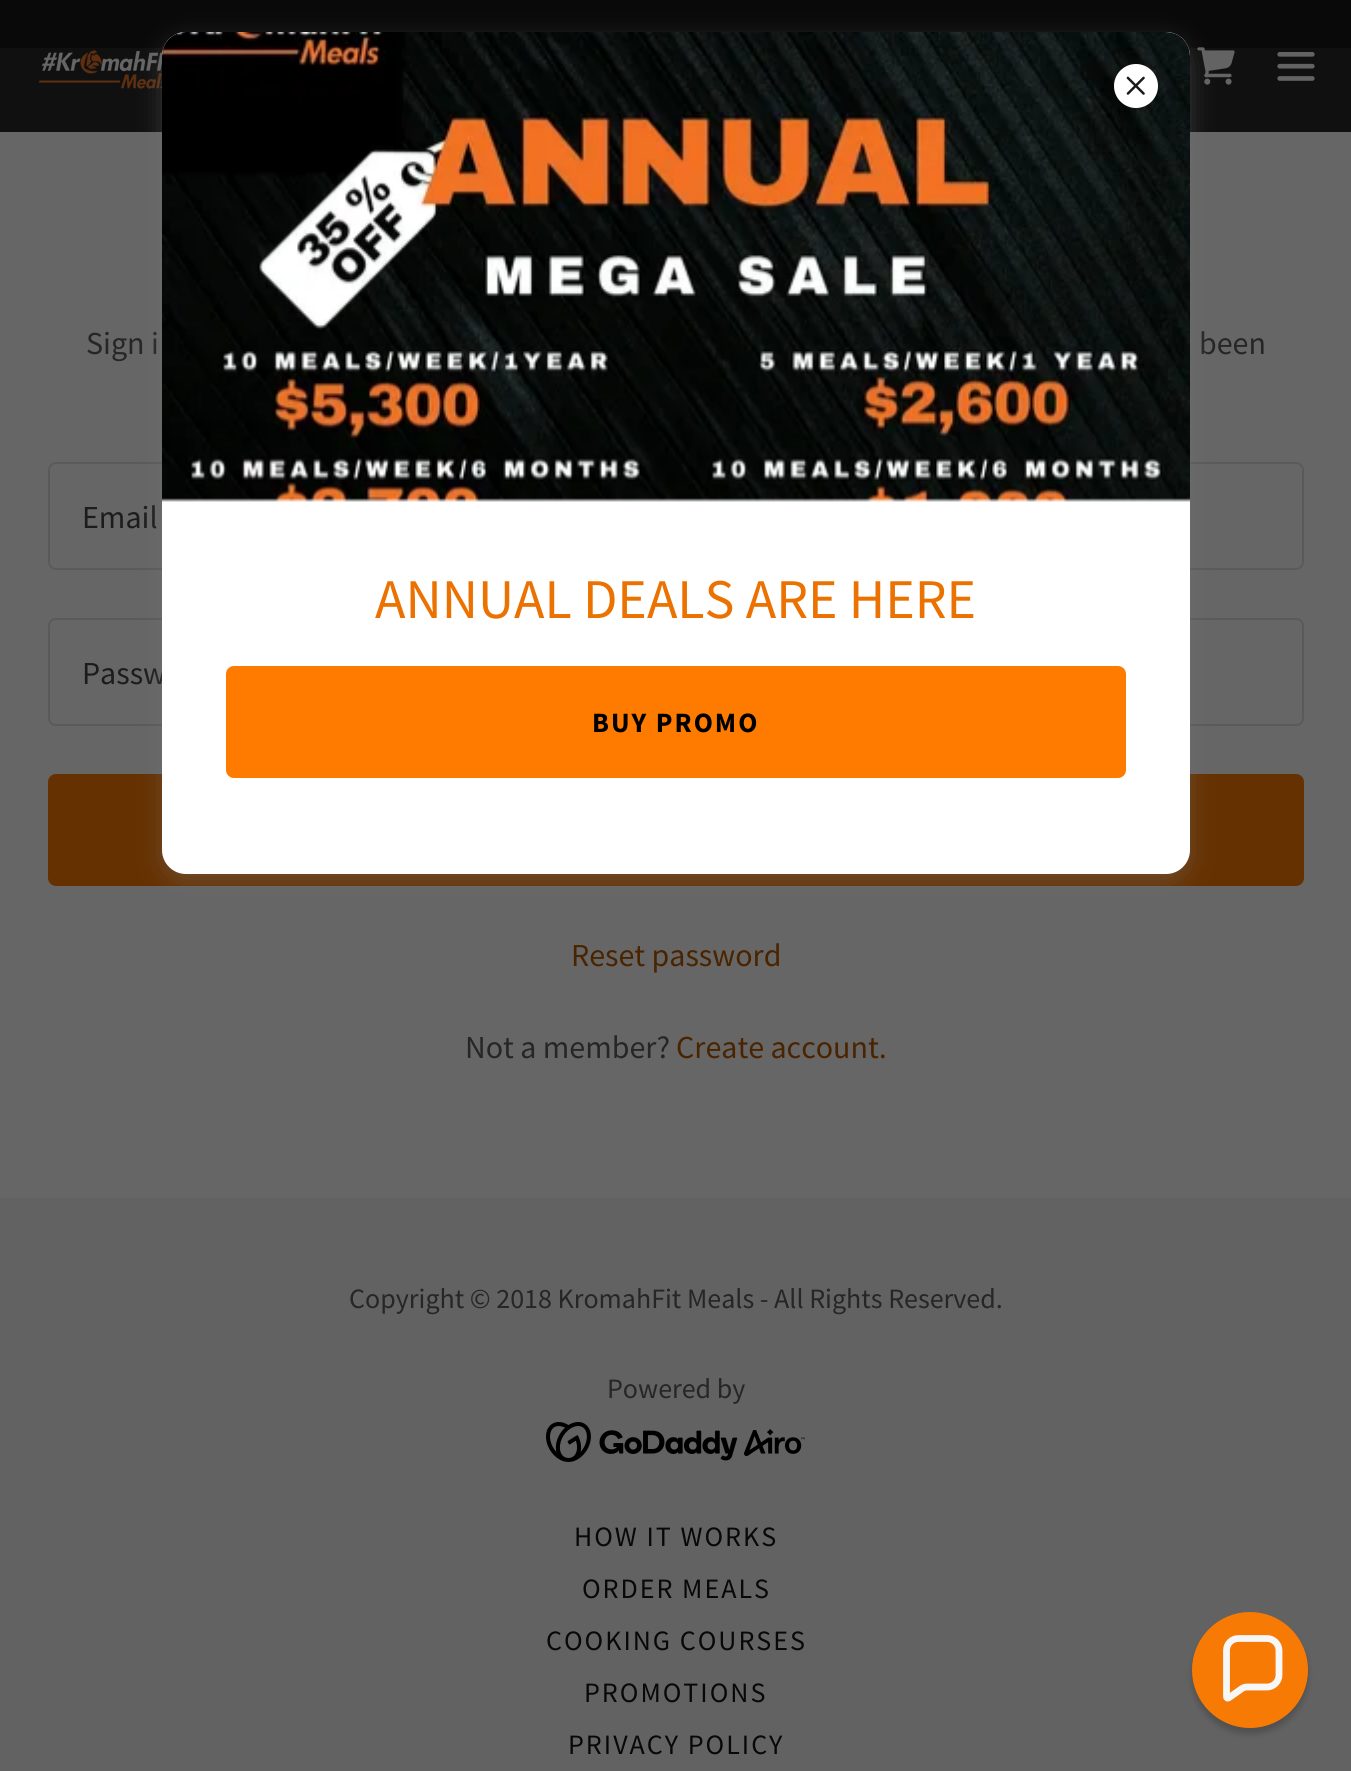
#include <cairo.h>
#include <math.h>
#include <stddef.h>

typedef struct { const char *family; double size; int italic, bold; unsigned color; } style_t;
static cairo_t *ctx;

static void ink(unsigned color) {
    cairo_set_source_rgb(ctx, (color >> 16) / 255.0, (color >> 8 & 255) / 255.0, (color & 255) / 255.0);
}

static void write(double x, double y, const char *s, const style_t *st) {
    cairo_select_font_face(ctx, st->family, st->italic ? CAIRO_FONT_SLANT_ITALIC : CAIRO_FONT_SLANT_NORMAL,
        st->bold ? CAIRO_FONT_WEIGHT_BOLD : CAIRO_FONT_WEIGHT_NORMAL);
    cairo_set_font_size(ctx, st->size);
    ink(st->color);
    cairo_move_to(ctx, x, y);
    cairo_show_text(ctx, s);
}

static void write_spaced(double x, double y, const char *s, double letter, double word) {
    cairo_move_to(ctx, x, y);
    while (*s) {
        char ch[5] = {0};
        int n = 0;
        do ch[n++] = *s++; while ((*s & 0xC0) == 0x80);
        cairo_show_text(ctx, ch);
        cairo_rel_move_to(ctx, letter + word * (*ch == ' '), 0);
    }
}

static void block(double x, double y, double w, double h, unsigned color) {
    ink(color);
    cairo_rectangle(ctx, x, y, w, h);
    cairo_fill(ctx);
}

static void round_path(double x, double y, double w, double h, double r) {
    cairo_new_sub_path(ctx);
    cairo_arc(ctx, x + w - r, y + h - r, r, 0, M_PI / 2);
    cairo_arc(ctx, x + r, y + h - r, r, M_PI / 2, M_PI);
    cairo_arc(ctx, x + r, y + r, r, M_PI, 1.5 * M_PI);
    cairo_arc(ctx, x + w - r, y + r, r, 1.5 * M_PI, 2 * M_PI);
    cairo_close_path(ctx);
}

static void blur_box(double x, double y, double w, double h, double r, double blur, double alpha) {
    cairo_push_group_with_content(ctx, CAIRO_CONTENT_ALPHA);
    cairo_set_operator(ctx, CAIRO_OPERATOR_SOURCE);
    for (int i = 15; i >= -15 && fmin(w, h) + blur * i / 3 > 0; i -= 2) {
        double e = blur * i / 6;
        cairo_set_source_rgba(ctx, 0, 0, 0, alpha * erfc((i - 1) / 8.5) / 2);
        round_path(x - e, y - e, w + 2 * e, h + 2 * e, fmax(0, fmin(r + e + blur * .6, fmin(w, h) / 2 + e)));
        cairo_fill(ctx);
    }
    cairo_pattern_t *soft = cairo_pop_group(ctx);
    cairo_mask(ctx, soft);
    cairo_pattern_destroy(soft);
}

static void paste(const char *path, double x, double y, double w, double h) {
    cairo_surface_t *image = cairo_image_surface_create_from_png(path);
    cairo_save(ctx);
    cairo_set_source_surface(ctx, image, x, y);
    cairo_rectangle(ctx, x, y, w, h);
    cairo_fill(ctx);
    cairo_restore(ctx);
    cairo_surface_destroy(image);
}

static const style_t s1 = {"Source Sans Pro", 32, 0, 0, 0x262626};
static const style_t s2 = {"Source Sans Pro", 32, 0, 0, 0x1c1c1c};
static const style_t s3 = {"Source Sans Pro", 32, 0, 0, 0x4a2400};
static const style_t s4 = {"Source Sans Pro", 56, 0, 0, 0xeb7100};
static const style_t s5 = {"Source Sans Pro", 28, 0, 0, 0x262626};

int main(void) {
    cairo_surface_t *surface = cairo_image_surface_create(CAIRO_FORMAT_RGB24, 1351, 1771);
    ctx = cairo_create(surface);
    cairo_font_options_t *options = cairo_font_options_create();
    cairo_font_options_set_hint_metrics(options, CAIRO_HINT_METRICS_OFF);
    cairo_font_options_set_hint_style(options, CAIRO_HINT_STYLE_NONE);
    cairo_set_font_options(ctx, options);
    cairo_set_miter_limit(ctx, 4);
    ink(0x626262);
    cairo_paint(ctx);
    block(0, 0, 1351, 48, 0x090909);
    block(0, 48, 1351, 84, 0x101010);
    paste("pic1.png", 38, 50, 125, 39);
    paste("pic2.png", 1197, 47, 38, 38);
    paste("pic3.png", 1277, 52, 38, 29);
    block(0, 132, 1351, 1066, 0x666666);
    write(86, 354, "Sign i", &s1);
    write(1199, 354, "been", &s1);
    round_path(49, 463, 1254, 106, 7);
    ink(0x5a5a5a);
    cairo_stroke(ctx);
    write(82, 528, "Email", &s2);
    round_path(49, 619, 1254, 106, 7);
    ink(0x5a5a5a);
    cairo_stroke(ctx);
    write(82, 684, "Passw", &s2);
    ink(0x663100);
    round_path(48, 774, 1256, 112, 8);
    cairo_fill(ctx);
    write(571, 966, "Reset password", &s3);
    write(465, 1058, "Not a member?", &s1);
    write(676, 1058, "Create account.", &s3);
    ink(0x757575);
    blur_box(162, 40, 1028, 842, 24, 12, 0.4);
    ink(0xffffff);
    round_path(162, 32, 1028, 842, 24);
    cairo_fill(ctx);
    paste("pic5.png", 162, 32, 1028, 470);
    cairo_arc(ctx, 1136, 86, 22, 0, 2 * M_PI);
    cairo_fill(ctx);
    paste("pic4.png", 1126, 76, 19, 19);
    write(375, 618, "ANNUAL DEALS ARE HERE", &s4);
    ink(0xff7b00);
    round_path(226, 666, 900, 112, 8);
    cairo_fill(ctx);
    cairo_select_font_face(ctx, "Source Sans Pro", CAIRO_FONT_SLANT_NORMAL, CAIRO_FONT_WEIGHT_BOLD);
    cairo_set_font_size(ctx, 28);
    ink(0x000000);
    write_spaced(592, 732, "BUY PROMO", 2, 0);
    write(349, 1308, "Copyright © 2018 KromahFit Meals - All Rights Reserved.", &s5);
    write(607, 1398, "Powered by", &s5);
    paste("pic6.png", 546, 1422, 259, 40);
    ink(0x080808);
    write_spaced(574, 1546, "HOW IT WORKS", 2, 0);
    write_spaced(582, 1598, "ORDER MEALS", 2, 0);
    write_spaced(546, 1650, "COOKING COURSES", 2, 0);
    write_spaced(584, 1702, "PROMOTIONS", 2, 0);
    write_spaced(568, 1754, "PRIVACY POLICY", 2, 0);
    ink(0x050505);
    blur_box(1192, 1618, 116, 116, 58, 3, 0.2);
    ink(0xf77a05);
    cairo_arc(ctx, 1250, 1670, 58, 0, 2 * M_PI);
    cairo_fill(ctx);
    cairo_new_path(ctx);
    cairo_move_to(ctx, 1267, 1638.5);
    cairo_line_to(ctx, 1238.5, 1638.5);
    cairo_curve_to(ctx, 1231.5, 1638.5, 1226.5, 1644, 1226.5, 1650.5);
    cairo_line_to(ctx, 1226.5, 1696.5);
    cairo_curve_to(ctx, 1226.5, 1698, 1227.5, 1698.5, 1228.5, 1698);
    cairo_line_to(ctx, 1242, 1688.5);
    cairo_curve_to(ctx, 1243.5, 1687.5, 1245.5, 1687, 1247, 1687);
    cairo_line_to(ctx, 1267, 1687);
    cairo_curve_to(ctx, 1273.5, 1687, 1279, 1681.5, 1279, 1675);
    cairo_line_to(ctx, 1279, 1650.5);
    cairo_curve_to(ctx, 1279, 1644, 1273.5, 1638.5, 1267, 1638.5);
    cairo_close_path(ctx);
    ink(0xf7f7f7);
    cairo_set_line_width(ctx, 6.8);
    cairo_stroke(ctx);
    cairo_surface_write_to_png(surface, "screenshot.png");
    cairo_font_options_destroy(options);
    cairo_destroy(ctx);
    cairo_surface_destroy(surface);
    return 0;
}
